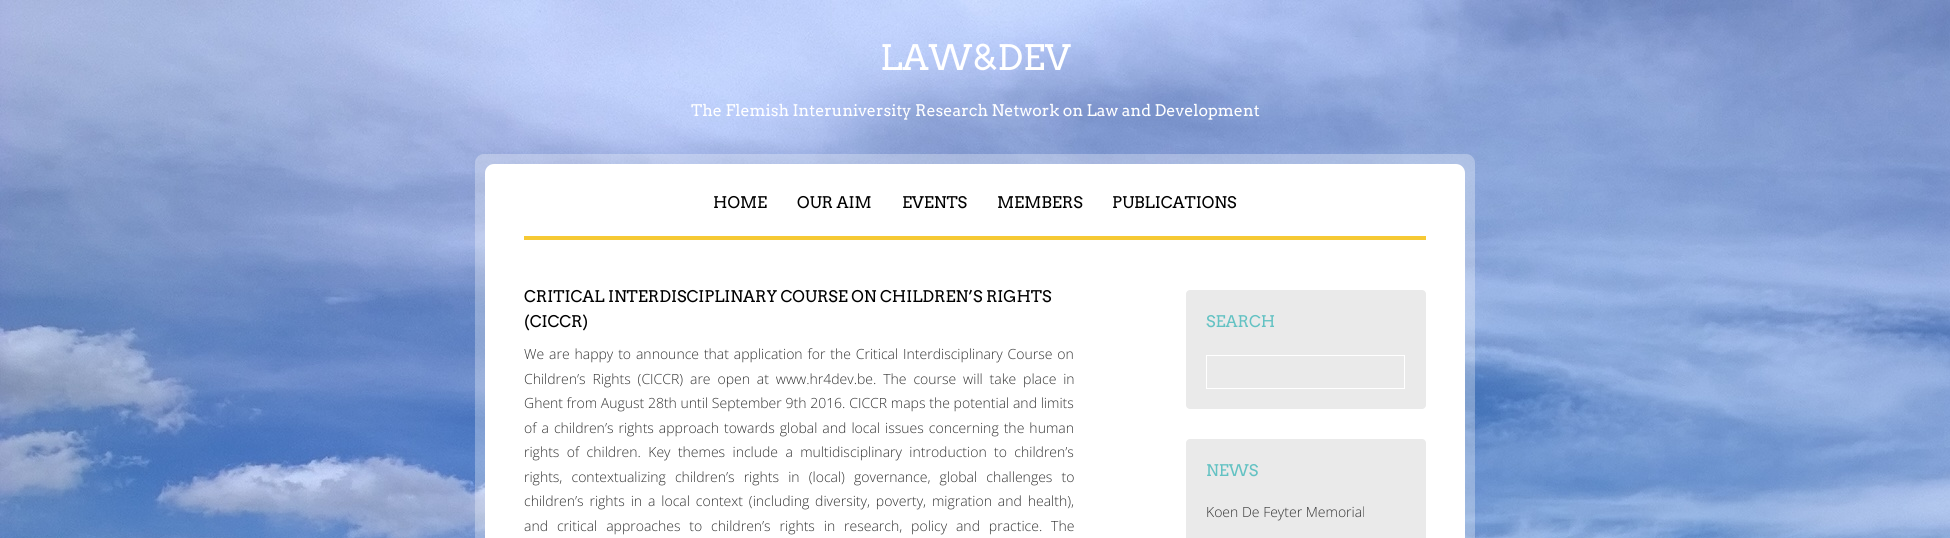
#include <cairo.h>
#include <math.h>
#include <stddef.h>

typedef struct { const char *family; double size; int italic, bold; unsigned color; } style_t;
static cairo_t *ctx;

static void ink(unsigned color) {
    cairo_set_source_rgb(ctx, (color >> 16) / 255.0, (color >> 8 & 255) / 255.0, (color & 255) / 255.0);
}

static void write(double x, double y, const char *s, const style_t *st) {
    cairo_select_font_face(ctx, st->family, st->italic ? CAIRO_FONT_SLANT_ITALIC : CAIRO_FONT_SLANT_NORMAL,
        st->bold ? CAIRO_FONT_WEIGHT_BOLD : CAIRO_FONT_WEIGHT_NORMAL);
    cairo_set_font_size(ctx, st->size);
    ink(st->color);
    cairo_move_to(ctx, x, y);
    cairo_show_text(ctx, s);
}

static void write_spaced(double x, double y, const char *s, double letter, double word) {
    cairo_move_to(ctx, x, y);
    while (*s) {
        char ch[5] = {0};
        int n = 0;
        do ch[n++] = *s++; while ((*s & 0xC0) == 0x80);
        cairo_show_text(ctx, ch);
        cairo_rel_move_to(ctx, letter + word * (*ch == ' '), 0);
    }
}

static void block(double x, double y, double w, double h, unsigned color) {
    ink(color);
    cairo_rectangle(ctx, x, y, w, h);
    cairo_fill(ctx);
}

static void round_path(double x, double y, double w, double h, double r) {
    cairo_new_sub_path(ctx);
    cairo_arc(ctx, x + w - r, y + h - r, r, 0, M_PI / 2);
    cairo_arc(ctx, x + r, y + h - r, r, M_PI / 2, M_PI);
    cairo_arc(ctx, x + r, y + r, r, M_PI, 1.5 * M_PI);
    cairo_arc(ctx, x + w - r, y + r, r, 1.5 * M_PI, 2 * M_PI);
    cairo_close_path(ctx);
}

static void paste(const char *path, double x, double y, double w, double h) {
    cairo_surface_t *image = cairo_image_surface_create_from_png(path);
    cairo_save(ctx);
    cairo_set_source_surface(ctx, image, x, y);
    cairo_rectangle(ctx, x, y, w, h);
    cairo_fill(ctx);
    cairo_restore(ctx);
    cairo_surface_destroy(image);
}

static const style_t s1 = {"Arvo", 35, 0, 0, 0xffffff};
static const style_t s2 = {"Arvo", 16, 0, 0, 0xffffff};
static const style_t s3 = {"Arvo", 16, 0, 0, 0x000000};
static const style_t s4 = {"Arvo", 16, 0, 0, 0x63c2c3};
static const style_t s5 = {"Open Sans Light", 14, 0, 0, 0x333333};

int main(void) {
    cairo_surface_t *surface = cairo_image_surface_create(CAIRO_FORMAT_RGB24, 1950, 538);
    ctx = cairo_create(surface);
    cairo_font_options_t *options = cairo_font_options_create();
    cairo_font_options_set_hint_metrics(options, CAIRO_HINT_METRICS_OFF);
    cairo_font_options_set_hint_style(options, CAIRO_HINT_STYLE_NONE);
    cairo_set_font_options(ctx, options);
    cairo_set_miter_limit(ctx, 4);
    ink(0xffffff);
    cairo_paint(ctx);
    paste("pic1.png", 0, 0, 1950, 538);
    write(880, 70, "LAW&DEV", &s1);
    write(691, 116, "The Flemish Interuniversity Research Network on Law and Development", &s2);
    cairo_set_source_rgba(ctx, 1, 1, 1, 0.3);
    round_path(475, 154, 1000, 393, 9);
    cairo_fill(ctx);
    ink(0xffffff);
    round_path(485, 164, 980, 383, 9);
    cairo_fill(ctx);
    block(524, 236, 902, 4, 0xf6c934);
    write(713, 208, "HOME", &s3);
    write(797, 208, "OUR AIM", &s3);
    write(902, 208, "EVENTS", &s3);
    write(997, 208, "MEMBERS", &s3);
    write(1112, 208, "PUBLICATIONS", &s3);
    write(524, 302, "CRITICAL INTERDISCIPLINARY COURSE ON CHILDREN’S RIGHTS", &s3);
    write(524, 327, "(CICCR)", &s3);
    cairo_select_font_face(ctx, "Open Sans Light", CAIRO_FONT_SLANT_NORMAL, CAIRO_FONT_WEIGHT_NORMAL);
    cairo_set_font_size(ctx, 14);
    ink(0x333333);
    write_spaced(524, 359, "We are happy to announce that application for the Critical Interdisciplinary Course on", 0, 1.25);
    write_spaced(524, 384, "Children’s Rights (CICCR) are open at www.hr4dev.be. The course will take place in", 0, 3.25);
    write_spaced(524, 408, "Ghent from August 28th until September 9th 2016. CICCR maps the potential and limits", 0, 0.1);
    write_spaced(524, 433, "of a children’s rights approach towards global and local issues concerning the human", 0, 1.4);
    write_spaced(524, 457, "rights of children. Key themes include a multidisciplinary introduction to children’s", 0, 3.75);
    write_spaced(524, 482, "rights, contextualizing children’s rights in (local) governance, global challenges to", 0, 5.5);
    write_spaced(524, 506, "children’s rights in a local context (including diversity, poverty, migration and health),", 0, 2.25);
    write_spaced(524, 531, "and critical approaches to children’s rights in research, policy and practice. The", 0, 5.25);
    ink(0xeaeaea);
    round_path(1186, 290, 240, 119, 4);
    cairo_fill(ctx);
    write(1206, 327, "SEARCH", &s4);
    cairo_rectangle(ctx, 1206.5, 355.5, 198, 33);
    ink(0xffffff);
    cairo_set_line_width(ctx, 1);
    cairo_stroke(ctx);
    ink(0xeaeaea);
    round_path(1186, 439, 240, 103, 4);
    cairo_fill(ctx);
    write(1206, 476, "NEWS", &s4);
    write(1206, 517, "Koen De Feyter Memorial", &s5);
    cairo_surface_write_to_png(surface, "screenshot.png");
    cairo_font_options_destroy(options);
    cairo_destroy(ctx);
    cairo_surface_destroy(surface);
    return 0;
}
